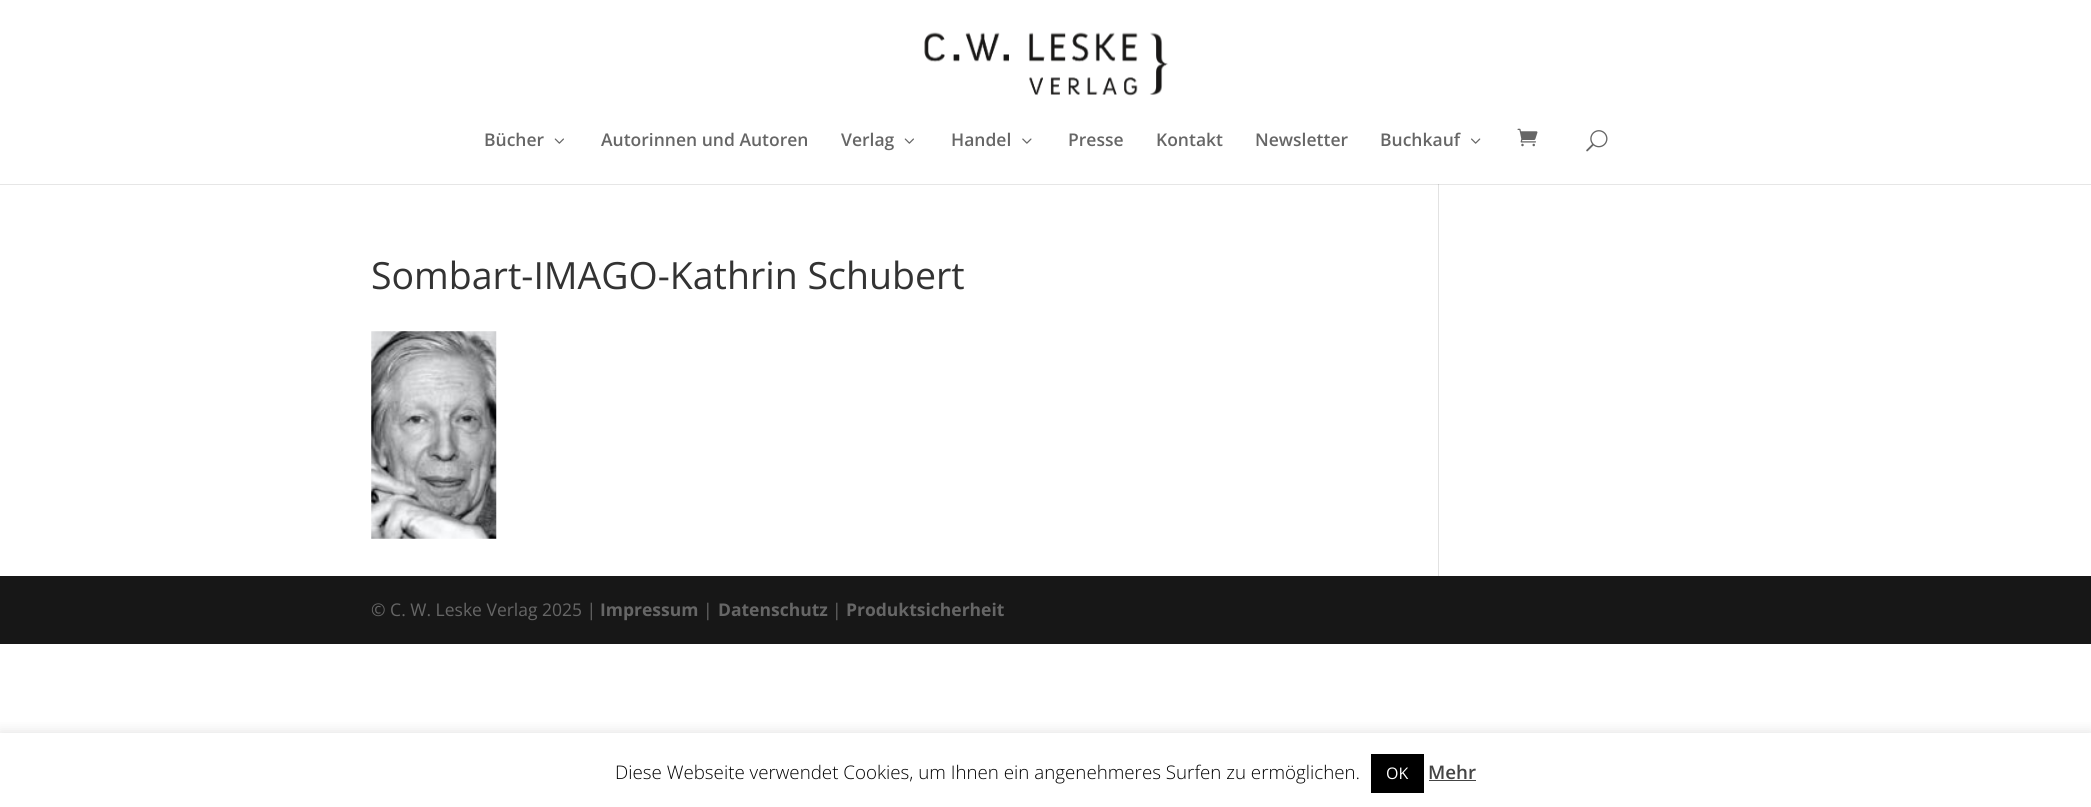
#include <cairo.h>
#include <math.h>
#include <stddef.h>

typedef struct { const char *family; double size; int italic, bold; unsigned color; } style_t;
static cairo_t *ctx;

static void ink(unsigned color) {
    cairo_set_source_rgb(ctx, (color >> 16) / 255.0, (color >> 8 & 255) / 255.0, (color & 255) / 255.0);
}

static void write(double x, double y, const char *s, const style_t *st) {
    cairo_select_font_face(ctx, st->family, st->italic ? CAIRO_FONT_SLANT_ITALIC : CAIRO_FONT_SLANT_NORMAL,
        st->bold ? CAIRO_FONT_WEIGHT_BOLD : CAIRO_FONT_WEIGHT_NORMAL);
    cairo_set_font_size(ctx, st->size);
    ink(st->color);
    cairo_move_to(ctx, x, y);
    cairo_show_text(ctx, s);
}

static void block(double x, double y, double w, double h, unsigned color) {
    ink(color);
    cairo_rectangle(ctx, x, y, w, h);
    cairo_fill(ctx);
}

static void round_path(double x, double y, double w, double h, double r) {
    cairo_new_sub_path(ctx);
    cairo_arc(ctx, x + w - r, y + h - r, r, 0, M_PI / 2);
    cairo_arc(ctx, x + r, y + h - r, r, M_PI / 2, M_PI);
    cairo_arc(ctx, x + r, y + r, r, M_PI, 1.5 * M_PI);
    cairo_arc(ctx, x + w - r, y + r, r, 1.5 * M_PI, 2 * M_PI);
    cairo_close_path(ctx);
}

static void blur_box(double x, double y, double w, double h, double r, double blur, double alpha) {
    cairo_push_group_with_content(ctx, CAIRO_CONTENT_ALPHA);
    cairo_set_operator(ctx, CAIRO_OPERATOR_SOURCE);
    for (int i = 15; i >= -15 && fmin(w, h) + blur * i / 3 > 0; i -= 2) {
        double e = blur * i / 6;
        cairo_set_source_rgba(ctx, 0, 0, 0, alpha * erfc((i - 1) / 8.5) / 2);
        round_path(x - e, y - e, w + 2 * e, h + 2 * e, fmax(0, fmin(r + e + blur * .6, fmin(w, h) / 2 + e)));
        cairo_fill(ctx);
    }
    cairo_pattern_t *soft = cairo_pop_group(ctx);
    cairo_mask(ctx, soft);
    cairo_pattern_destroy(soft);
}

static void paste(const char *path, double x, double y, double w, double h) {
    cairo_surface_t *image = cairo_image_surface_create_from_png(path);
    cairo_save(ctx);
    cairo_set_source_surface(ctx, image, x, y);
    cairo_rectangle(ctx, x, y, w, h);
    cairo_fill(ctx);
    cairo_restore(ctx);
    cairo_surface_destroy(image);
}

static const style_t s1 = {"Open Sans SemiBold", 17.5, 0, 0, 0x666666};
static const style_t s2 = {"Open Sans", 37.5, 0, 0, 0x333333};
static const style_t s3 = {"Open Sans", 17.5, 0, 0, 0x666666};
static const style_t s4 = {"Open Sans", 17.5, 0, 1, 0x666666};
static const style_t s5 = {"Open Sans Light", 18.75, 0, 0, 0x000000};
static const style_t s6 = {"Open Sans", 16, 0, 0, 0xffffff};
static const style_t s7 = {"Open Sans SemiBold", 18.75, 0, 0, 0x444444};

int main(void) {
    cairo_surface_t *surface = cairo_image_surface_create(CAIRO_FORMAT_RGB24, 2091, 807);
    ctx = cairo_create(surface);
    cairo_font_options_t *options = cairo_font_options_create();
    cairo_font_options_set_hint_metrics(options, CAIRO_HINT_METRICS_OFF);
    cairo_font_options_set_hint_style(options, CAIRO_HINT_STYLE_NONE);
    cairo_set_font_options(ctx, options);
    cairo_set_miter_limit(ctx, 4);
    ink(0xffffff);
    cairo_paint(ctx);
    block(0, 184, 2091, 1, 0xe6e6e6);
    paste("pic1.png", 924, 32, 244, 64);
    write(484, 146, "Bücher", &s1);
    paste("pic2.png", 554, 138, 10, 6);
    write(601, 146, "Autorinnen und Autoren", &s1);
    write(841, 146, "Verlag", &s1);
    paste("pic2.png", 904, 138, 10, 6);
    write(951, 146, "Handel", &s1);
    paste("pic3.png", 1022, 138, 10, 6);
    write(1068, 146, "Presse", &s1);
    write(1156, 146, "Kontakt", &s1);
    write(1255, 146, "Newsletter", &s1);
    write(1380, 146, "Buchkauf", &s1);
    paste("pic4.png", 1471, 138, 10, 6);
    paste("pic5.png", 1517, 128, 21, 19);
    paste("pic6.png", 1586, 130, 22, 22);
    write(371, 289, "Sombart-IMAGO-Kathrin Schubert", &s2);
    paste("pic7.png", 371, 331, 126, 208);
    block(1438, 184, 1, 392, 0xe2e2e2);
    block(1438, 184, 1, 1, 0xcbcbcb);
    block(0, 576, 2091, 68, 0x171717);
    write(371, 616, "© C. W. Leske Verlag 2025 |", &s3);
    write(600, 616, "Impressum", &s4);
    write(703, 616, "|", &s3);
    write(718, 616, "Datenschutz", &s4);
    write(832, 616, "|", &s3);
    write(846, 616, "Produktsicherheit", &s4);
    cairo_save(ctx);
    cairo_rectangle(ctx, 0, 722, 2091, 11);
    cairo_clip(ctx);
    ink(0xacabab);
    blur_box(0, 731, 2091, 75, 0, 6, 0.3);
    cairo_restore(ctx);
    write(615, 779, "Diese Webseite verwendet Cookies, um Ihnen ein angenehmeres Surfen zu ermöglichen.", &s5);
    block(1371, 754, 53, 39, 0x000000);
    write(1386, 779, "OK", &s6);
    write(1428, 779, "Mehr", &s7);
    block(1429, 780, 47, 1, 0x444444);
    cairo_surface_write_to_png(surface, "screenshot.png");
    cairo_font_options_destroy(options);
    cairo_destroy(ctx);
    cairo_surface_destroy(surface);
    return 0;
}
